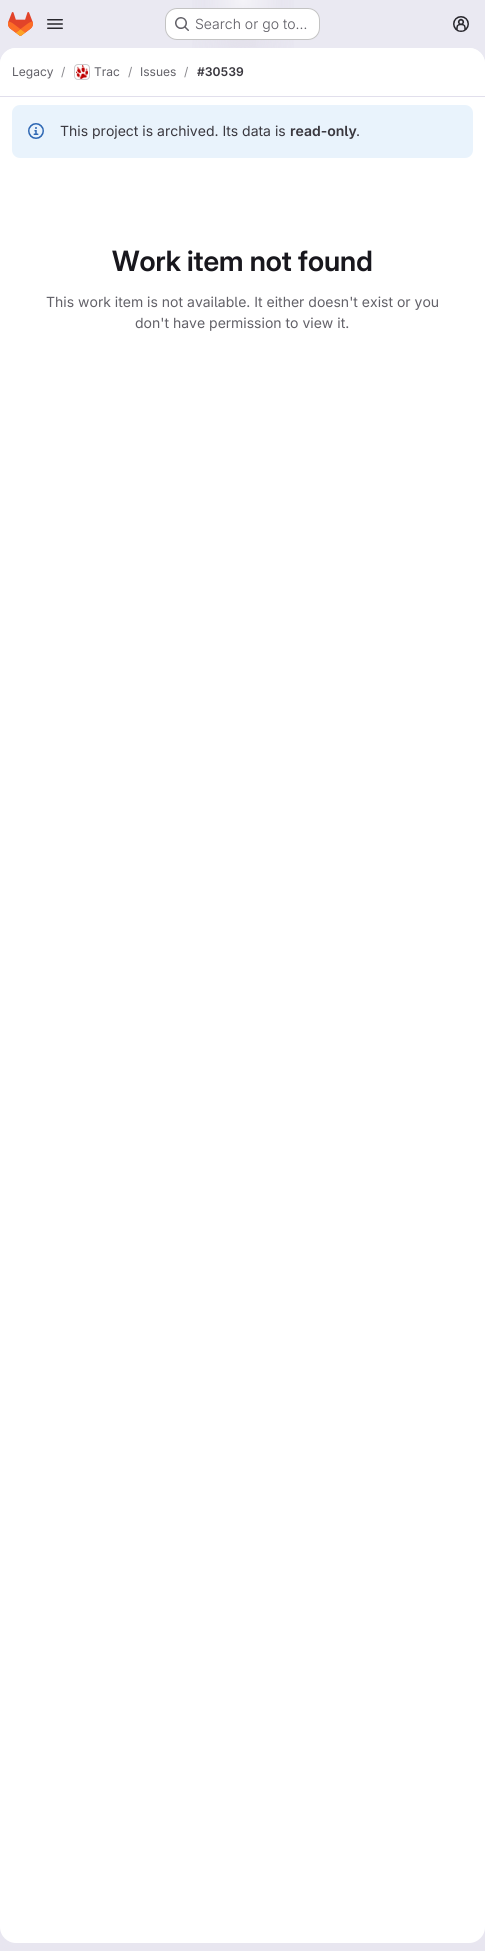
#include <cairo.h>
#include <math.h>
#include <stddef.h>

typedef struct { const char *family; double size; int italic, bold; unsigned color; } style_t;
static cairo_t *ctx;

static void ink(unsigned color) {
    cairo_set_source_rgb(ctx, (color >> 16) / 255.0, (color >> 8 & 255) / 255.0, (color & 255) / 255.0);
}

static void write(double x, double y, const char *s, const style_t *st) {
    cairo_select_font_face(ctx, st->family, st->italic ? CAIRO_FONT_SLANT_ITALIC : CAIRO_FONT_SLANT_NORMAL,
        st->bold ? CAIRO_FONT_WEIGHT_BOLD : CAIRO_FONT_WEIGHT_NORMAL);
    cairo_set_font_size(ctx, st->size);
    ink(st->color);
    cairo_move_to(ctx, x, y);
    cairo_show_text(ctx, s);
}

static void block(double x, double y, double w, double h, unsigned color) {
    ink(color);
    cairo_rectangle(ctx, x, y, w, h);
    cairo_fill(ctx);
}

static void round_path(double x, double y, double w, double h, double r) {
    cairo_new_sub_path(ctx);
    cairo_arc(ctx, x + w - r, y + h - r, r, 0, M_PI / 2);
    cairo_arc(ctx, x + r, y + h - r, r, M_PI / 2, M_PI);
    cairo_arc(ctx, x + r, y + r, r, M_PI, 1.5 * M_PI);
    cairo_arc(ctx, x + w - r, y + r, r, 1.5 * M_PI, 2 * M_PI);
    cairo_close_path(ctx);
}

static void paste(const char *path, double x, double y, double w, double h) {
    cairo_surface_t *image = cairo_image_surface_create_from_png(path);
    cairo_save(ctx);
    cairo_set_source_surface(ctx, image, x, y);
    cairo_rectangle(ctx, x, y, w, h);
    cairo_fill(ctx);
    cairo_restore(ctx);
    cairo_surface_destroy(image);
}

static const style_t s1 = {"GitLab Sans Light", 14, 0, 0, 0x626168};
static const style_t s2 = {"GitLab Sans", 12, 0, 0, 0x626168};
static const style_t s3 = {"GitLab Sans", 12, 0, 0, 0x89888d};
static const style_t s4 = {"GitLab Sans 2 SemiBold", 12, 0, 0, 0x3a383f};
static const style_t s5 = {"GitLab Sans", 14, 0, 0, 0x3a383f};
static const style_t s6 = {"GitLab Sans 2 SemiBold", 14, 0, 0, 0x3a383f};
static const style_t s7 = {"GitLab Sans SemiBold", 28, 0, 0, 0x18171d};
static const style_t s8 = {"GitLab Sans", 14, 0, 0, 0x626168};

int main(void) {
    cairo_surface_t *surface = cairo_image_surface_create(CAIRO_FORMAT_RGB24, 485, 1951);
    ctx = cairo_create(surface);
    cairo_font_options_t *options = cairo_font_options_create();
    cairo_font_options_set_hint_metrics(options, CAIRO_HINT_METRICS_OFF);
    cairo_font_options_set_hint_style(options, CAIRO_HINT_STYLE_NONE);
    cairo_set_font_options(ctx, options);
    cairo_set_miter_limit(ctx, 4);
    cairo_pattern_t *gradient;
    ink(0xffffff);
    cairo_paint(ctx);
    gradient = cairo_pattern_create_linear(417, 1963, 68, -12);
    cairo_pattern_add_color_stop_rgba(gradient, 0, 0.91, 0.902, 0.941, 1);
    cairo_pattern_add_color_stop_rgba(gradient, 0.7, 0.918, 0.914, 0.949, 1);
    cairo_set_source(ctx, gradient);
    cairo_pattern_destroy(gradient);
    cairo_rectangle(ctx, 0, 0, 485, 1951);
    cairo_fill(ctx);
    gradient = cairo_pattern_create_radial(0, 0, 0, 0, 0, 1);
    cairo_pattern_set_matrix(gradient, &(cairo_matrix_t){1.0 / 243, 0, 0, 1.0 / 1951, -1.0 * 243 / 243, -1.0 * 0 / 1951});
    cairo_pattern_add_color_stop_rgba(gradient, 0, 0.894, 0.886, 0.929, 1);
    cairo_pattern_add_color_stop_rgba(gradient, 0.29, 0.894, 0.886, 0.929, 0);
    cairo_set_source(ctx, gradient);
    cairo_pattern_destroy(gradient);
    cairo_rectangle(ctx, 192, 0, 102, 48);
    cairo_fill(ctx);
    gradient = cairo_pattern_create_radial(0, 0, 0, 0, 0, 1);
    cairo_pattern_set_matrix(gradient, &(cairo_matrix_t){1.0 / 243, 0, 0, 1.0 / 1951, -1.0 * 243 / 243, -1.0 * 0 / 1951});
    cairo_pattern_add_color_stop_rgba(gradient, 0, 0.894, 0.886, 0.925, 1);
    cairo_pattern_add_color_stop_rgba(gradient, 0.21, 0.894, 0.886, 0.925, 0);
    cairo_set_source(ctx, gradient);
    cairo_pattern_destroy(gradient);
    cairo_rectangle(ctx, 230, 15, 26, 32);
    cairo_fill(ctx);
    gradient = cairo_pattern_create_radial(243, 0, 0, 243, 0, 1966);
    cairo_pattern_add_color_stop_rgba(gradient, 0, 1, 1, 1, 0.6);
    cairo_pattern_add_color_stop_rgba(gradient, 0.02, 1, 1, 1, 0);
    cairo_set_source(ctx, gradient);
    cairo_pattern_destroy(gradient);
    cairo_rectangle(ctx, 206, 0, 74, 8);
    cairo_fill(ctx);
    paste("pic1.png", 8, 12, 25, 24);
    paste("pic2.png", 47, 19, 16, 10);
    ink(0xffffff);
    round_path(165, 8, 155, 32, 12);
    cairo_fill(ctx);
    round_path(165.5, 8.5, 154, 31, 11.5);
    cairo_set_source_rgba(ctx, 0.02, 0.02, 0.024, 0.24);
    cairo_set_line_width(ctx, 1);
    cairo_stroke(ctx);
    paste("pic3.png", 175, 17, 14, 14);
    write(195, 29, "Search or go to…", &s1);
    paste("pic4.png", 453, 16, 16, 16);
    ink(0xffffff);
    round_path(0, 48, 485, 1895, 16);
    cairo_fill(ctx);
    cairo_new_path(ctx);
    cairo_move_to(ctx, 16, 48);
    cairo_line_to(ctx, 469, 48);
    cairo_curve_to(ctx, 478, 48, 485, 55, 485, 64);
    cairo_line_to(ctx, 485, 97);
    cairo_line_to(ctx, 0, 97);
    cairo_line_to(ctx, 0, 64);
    cairo_curve_to(ctx, 0, 55, 7, 48, 16, 48);
    cairo_close_path(ctx);
    cairo_fill(ctx);
    block(0, 96, 485, 1, 0xe1dfec);
    write(12, 76, "Legacy", &s2);
    write(61, 76, "/", &s3);
    round_path(74.5, 64.5, 15, 15, 3.5);
    ink(0xdcdcde);
    cairo_stroke(ctx);
    paste("pic5.png", 76, 65, 12, 14);
    round_path(74.5, 64.5, 15, 15, 3.5);
    cairo_set_source_rgba(ctx, 0.02, 0.02, 0.024, 0.08);
    cairo_stroke(ctx);
    write(94, 76, "Trac", &s2);
    write(128, 76, "/", &s3);
    write(140, 76, "Issues", &s2);
    write(184, 76, "/", &s3);
    write(197, 76, "#30539", &s4);
    ink(0xe9f3fc);
    round_path(12, 105, 461, 53, 8);
    cairo_fill(ctx);
    paste("pic6.png", 28, 123, 16, 16);
    write(60, 136, "This project is archived. Its data is", &s5);
    write(290, 136, "read-only", &s6);
    write(356, 136, ".", &s5);
    write(112, 271, "Work item not found", &s7);
    write(46, 307, "This work item is not available. It either doesn't exist or you", &s8);
    write(135, 328, "don't have permission to view it.", &s8);
    cairo_surface_write_to_png(surface, "screenshot.png");
    cairo_font_options_destroy(options);
    cairo_destroy(ctx);
    cairo_surface_destroy(surface);
    return 0;
}
